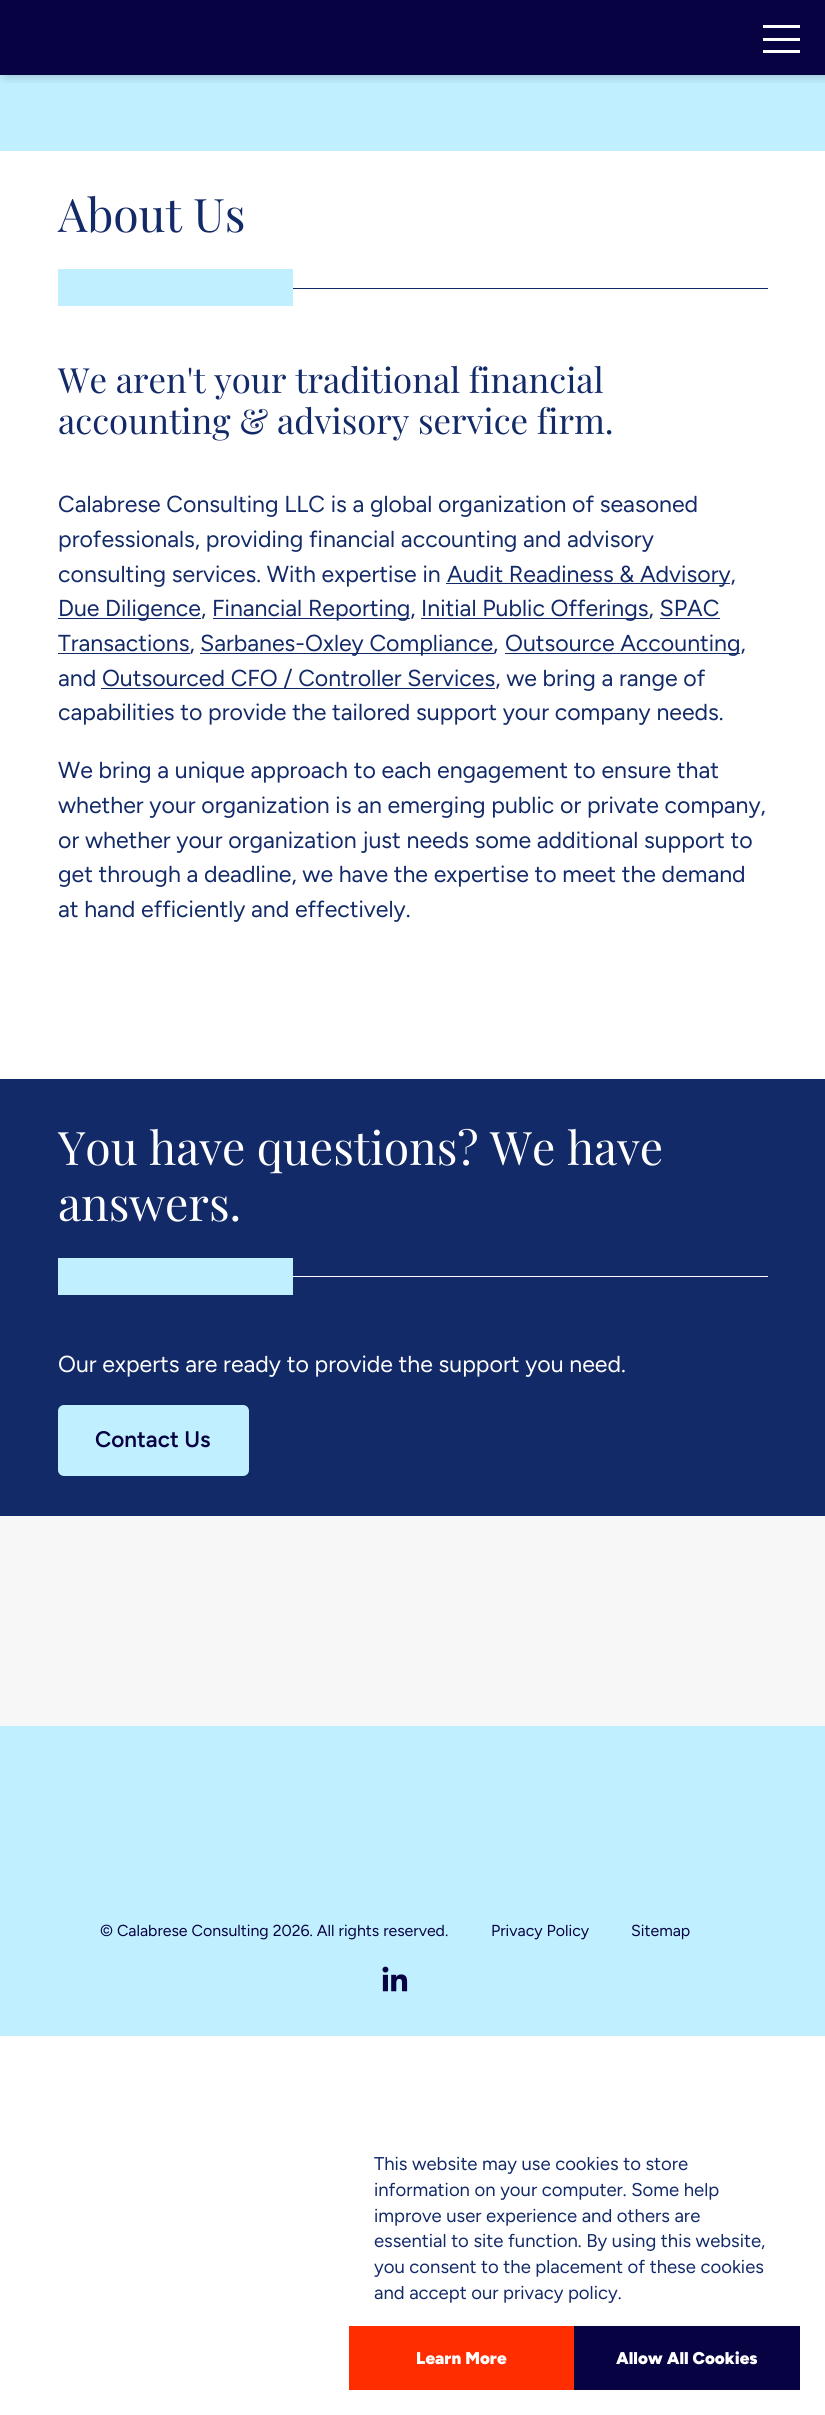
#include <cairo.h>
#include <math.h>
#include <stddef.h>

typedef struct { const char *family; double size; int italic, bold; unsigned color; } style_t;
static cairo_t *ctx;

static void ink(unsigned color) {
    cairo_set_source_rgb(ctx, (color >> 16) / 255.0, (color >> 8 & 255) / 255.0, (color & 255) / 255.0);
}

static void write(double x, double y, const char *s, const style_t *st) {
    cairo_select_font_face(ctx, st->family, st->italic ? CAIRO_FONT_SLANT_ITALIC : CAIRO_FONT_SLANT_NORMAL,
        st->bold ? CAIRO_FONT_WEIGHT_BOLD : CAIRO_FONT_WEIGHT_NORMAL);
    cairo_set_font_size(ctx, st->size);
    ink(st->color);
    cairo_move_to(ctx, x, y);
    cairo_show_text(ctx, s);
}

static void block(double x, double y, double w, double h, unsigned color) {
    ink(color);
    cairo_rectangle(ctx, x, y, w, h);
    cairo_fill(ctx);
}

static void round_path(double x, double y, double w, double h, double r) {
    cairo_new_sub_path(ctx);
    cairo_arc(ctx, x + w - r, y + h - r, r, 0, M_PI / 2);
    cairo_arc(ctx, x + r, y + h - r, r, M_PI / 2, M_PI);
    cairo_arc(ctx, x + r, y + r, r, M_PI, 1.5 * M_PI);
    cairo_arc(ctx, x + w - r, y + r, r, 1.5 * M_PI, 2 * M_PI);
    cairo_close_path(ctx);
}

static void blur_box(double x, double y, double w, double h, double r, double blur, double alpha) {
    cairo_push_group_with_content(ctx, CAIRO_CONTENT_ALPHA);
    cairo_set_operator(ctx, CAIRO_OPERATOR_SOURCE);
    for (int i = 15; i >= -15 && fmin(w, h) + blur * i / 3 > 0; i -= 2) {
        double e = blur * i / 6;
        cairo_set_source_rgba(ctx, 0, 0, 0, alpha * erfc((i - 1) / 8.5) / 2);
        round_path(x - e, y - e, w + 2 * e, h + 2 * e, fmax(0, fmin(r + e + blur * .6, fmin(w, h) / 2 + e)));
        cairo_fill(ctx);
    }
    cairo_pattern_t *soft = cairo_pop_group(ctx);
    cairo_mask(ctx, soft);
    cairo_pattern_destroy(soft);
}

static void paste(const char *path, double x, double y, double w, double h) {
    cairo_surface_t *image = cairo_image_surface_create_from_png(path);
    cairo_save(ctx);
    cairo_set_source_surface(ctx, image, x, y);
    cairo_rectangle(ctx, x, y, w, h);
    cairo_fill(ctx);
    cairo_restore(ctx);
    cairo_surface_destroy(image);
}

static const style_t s1 = {"Playfair Display", 46.25, 0, 0, 0x132a68};
static const style_t s2 = {"Playfair Display", 34.75, 0, 0, 0x132a68};
static const style_t s3 = {"Figtree", 23.1, 0, 0, 0x132a68};
static const style_t s4 = {"Playfair Display", 46.25, 0, 0, 0xffffff};
static const style_t s5 = {"Figtree", 23.1, 0, 0, 0xffffff};
static const style_t s6 = {"Figtree SemiBold", 22.5, 0, 0, 0x070343};
static const style_t s7 = {"Figtree", 15.9, 0, 0, 0x070343};
static const style_t s8 = {"Figtree", 18.5, 0, 0, 0x132a68};
static const style_t s9 = {"Figtree Black", 17, 0, 0, 0xffffff};

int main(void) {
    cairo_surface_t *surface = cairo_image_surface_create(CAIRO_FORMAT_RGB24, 825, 2415);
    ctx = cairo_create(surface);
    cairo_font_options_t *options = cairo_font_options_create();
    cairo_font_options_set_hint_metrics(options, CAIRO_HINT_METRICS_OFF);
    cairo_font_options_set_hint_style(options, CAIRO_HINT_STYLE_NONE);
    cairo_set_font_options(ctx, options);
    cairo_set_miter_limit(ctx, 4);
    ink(0xffffff);
    cairo_paint(ctx);
    block(0, 0, 825, 75, 0x070343);
    block(0, 75, 825, 76, 0xc0efff);
    cairo_save(ctx);
    cairo_rectangle(ctx, 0, 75, 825, 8);
    cairo_clip(ctx);
    ink(0x000000);
    blur_box(6, 0, 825, 75, 0, 6, 0.25);
    cairo_restore(ctx);
    block(763, 25, 37, 3, 0xffffff);
    block(763, 38, 37, 3, 0xffffff);
    block(763, 50, 37, 3, 0xffffff);
    write(58, 232, "About Us", &s1);
    block(58, 269, 235, 37, 0xc0efff);
    block(293, 288, 475, 1, 0x132a68);
    write(58, 393, "We aren't your traditional financial", &s2);
    write(58, 434, "accounting & advisory service firm.", &s2);
    write(58, 512, "Calabrese Consulting LLC is a global organization of seasoned", &s3);
    write(58, 547, "professionals, providing financial accounting and advisory", &s3);
    write(58, 582, "consulting services. With expertise in", &s3);
    block(446, 583, 284, 1, 0x132a68);
    write(447, 582, "Audit Readiness & Advisory,", &s3);
    block(58, 618, 143, 1, 0x132a68);
    write(58, 616, "Due Diligence,", &s3);
    block(213, 618, 197, 1, 0x132a68);
    write(212, 616, "Financial Reporting,", &s3);
    block(421, 618, 228, 1, 0x132a68);
    write(421, 616, "Initial Public Offerings, SPAC", &s3);
    block(58, 653, 132, 1, 0x132a68);
    write(58, 651, "Transactions,", &s3);
    block(660, 618, 60, 1, 0x132a68);
    block(200, 653, 294, 1, 0x132a68);
    write(200, 651, "Sarbanes-Oxley Compliance,", &s3);
    block(505, 653, 235, 1, 0x132a68);
    write(505, 651, "Outsource Accounting,", &s3);
    write(58, 686, "and Outsourced CFO / Controller Services, we bring a range of", &s3);
    block(101, 688, 394, 1, 0x132a68);
    write(58, 720, "capabilities to provide the tailored support your company needs.", &s3);
    write(58, 778, "We bring a unique approach to each engagement to ensure that", &s3);
    write(58, 813, "whether your organization is an emerging public or private company,", &s3);
    write(58, 848, "or whether your organization just needs some additional support to", &s3);
    write(58, 882, "get through a deadline, we have the expertise to meet the demand", &s3);
    write(58, 917, "at hand efficiently and effectively.", &s3);
    block(0, 1079, 825, 437, 0x132a68);
    write(58, 1165, "You have questions? We have", &s4);
    write(58, 1221, "answers.", &s4);
    block(58, 1258, 235, 37, 0xc0efff);
    block(293, 1276, 475, 1, 0xffffff);
    write(58, 1372, "Our experts are ready to provide the support you need.", &s5);
    ink(0xc0efff);
    round_path(58, 1405, 191, 71, 6);
    cairo_fill(ctx);
    write(95, 1447, "Contact Us", &s6);
    block(0, 1516, 825, 210, 0xf7f7f7);
    block(0, 1726, 825, 310, 0xc0efff);
    write(100, 1936, "© Calabrese Consulting 2026. All rights reserved.", &s7);
    write(491, 1936, "Privacy Policy", &s7);
    write(631, 1936, "Sitemap", &s7);
    paste("pic1.png", 382, 1966, 26, 26);
    write(374, 2170, "This website may use cookies to store", &s8);
    write(374, 2196, "information on your computer. Some help", &s8);
    write(374, 2222, "improve user experience and others are", &s8);
    write(374, 2247, "essential to site function. By using this website,", &s8);
    write(374, 2273, "you consent to the placement of these cookies", &s8);
    write(374, 2299, "and accept our privacy policy.", &s8);
    block(349, 2326, 225, 64, 0xff2d00);
    write(416, 2364, "Learn More", &s9);
    block(574, 2326, 226, 64, 0x070343);
    write(616, 2364, "Allow All Cookies", &s9);
    cairo_surface_write_to_png(surface, "screenshot.png");
    cairo_font_options_destroy(options);
    cairo_destroy(ctx);
    cairo_surface_destroy(surface);
    return 0;
}
